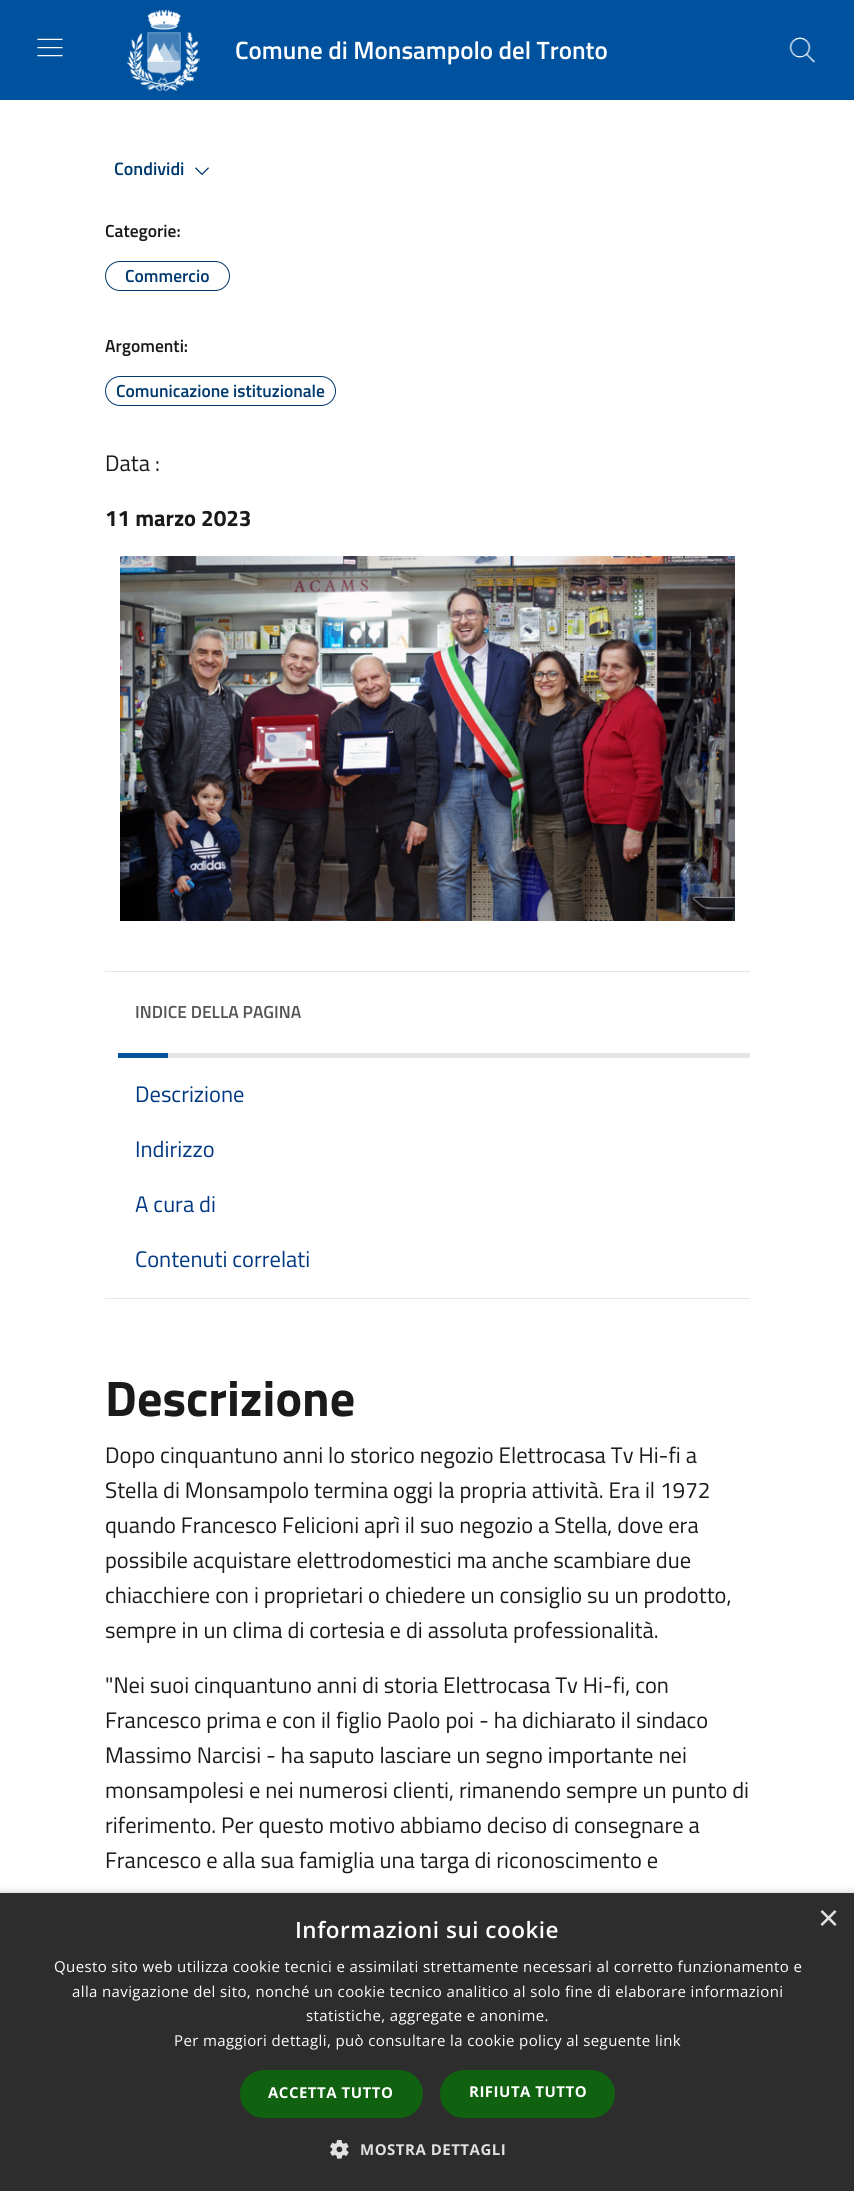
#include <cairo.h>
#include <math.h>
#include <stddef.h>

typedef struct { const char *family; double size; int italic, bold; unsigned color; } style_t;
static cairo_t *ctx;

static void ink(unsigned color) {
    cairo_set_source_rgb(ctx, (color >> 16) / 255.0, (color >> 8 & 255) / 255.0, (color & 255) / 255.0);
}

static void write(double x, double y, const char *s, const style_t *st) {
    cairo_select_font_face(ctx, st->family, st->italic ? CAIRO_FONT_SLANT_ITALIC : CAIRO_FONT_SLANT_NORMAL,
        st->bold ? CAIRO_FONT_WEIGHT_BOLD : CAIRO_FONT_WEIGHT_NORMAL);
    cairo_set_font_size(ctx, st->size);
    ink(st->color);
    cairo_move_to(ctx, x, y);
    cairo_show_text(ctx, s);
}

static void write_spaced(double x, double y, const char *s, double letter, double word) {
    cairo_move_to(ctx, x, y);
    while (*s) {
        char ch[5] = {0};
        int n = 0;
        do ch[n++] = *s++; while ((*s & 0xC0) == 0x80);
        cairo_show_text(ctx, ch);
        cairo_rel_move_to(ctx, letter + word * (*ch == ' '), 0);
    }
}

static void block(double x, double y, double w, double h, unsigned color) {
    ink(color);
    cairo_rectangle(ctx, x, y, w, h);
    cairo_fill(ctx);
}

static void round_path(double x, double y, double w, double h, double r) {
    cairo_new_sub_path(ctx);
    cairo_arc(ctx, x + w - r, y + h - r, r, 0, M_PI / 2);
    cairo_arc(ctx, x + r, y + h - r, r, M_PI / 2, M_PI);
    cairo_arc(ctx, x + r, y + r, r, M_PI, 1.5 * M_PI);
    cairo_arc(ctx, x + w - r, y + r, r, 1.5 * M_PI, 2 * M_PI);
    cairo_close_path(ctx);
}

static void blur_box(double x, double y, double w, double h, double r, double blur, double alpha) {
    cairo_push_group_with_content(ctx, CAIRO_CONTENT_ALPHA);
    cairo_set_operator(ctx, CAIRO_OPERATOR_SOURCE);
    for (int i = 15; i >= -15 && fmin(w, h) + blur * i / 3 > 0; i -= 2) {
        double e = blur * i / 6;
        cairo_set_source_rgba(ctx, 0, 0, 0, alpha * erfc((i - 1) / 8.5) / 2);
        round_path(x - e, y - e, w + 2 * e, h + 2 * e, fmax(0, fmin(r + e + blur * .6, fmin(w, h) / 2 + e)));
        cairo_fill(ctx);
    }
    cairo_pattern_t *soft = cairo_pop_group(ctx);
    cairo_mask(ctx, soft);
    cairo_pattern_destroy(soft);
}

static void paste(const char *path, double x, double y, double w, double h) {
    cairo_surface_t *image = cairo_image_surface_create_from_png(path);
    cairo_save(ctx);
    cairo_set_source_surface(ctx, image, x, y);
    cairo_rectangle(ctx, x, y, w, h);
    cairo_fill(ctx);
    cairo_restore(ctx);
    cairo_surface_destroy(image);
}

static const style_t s1 = {"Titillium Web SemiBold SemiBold", 25, 0, 0, 0xffffff};
static const style_t s2 = {"Titillium Web SemiBold SemiBold", 18, 0, 0, 0x00396e};
static const style_t s3 = {"Titillium Web SemiBold SemiBold", 17.5, 0, 0, 0x1a1a1a};
static const style_t s4 = {"Titillium Web SemiBold SemiBold", 17.5, 0, 0, 0x00396e};
static const style_t s5 = {"Titillium Web", 22.5, 0, 0, 0x1a1a1a};
static const style_t s6 = {"Titillium Web", 22.5, 0, 1, 0x1a1a1a};
static const style_t s7 = {"Titillium Web SemiBold SemiBold", 17.5, 0, 0, 0x555555};
static const style_t s8 = {"Titillium Web", 22.5, 0, 0, 0x003882};
static const style_t s9 = {"Titillium Web", 50, 0, 1, 0x1a1a1a};
static const style_t s10 = {"Liberation Sans", 36, 0, 0, 0xe0e0e0};

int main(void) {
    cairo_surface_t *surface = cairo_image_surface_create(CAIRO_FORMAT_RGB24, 854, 2191);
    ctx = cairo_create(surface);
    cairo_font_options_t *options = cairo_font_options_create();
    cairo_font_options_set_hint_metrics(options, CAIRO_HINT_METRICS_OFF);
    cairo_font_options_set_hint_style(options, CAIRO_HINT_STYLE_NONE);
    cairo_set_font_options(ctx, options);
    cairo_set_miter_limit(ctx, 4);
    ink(0xffffff);
    cairo_paint(ctx);
    block(0, 0, 854, 100, 0x00529e);
    paste("pic1.png", 37, 38, 26, 19);
    paste("pic2.png", 126, 10, 74, 82);
    write(235, 59, "Comune di Monsampolo del Tronto", &s1);
    paste("pic3.png", 789, 37, 27, 26);
    write(114, 175, "Condividi", &s2);
    paste("pic4.png", 195, 167, 14, 9);
    write(105, 237, "Categorie:", &s3);
    round_path(105.5, 261.5, 124, 29, 14.5);
    ink(0x00396e);
    cairo_set_line_width(ctx, 1);
    cairo_stroke(ctx);
    write(125, 282, "Commercio", &s4);
    write(105, 352, "Argomenti:", &s3);
    round_path(105.5, 376.5, 230, 29, 14.5);
    ink(0x00396e);
    cairo_stroke(ctx);
    write(116, 397, "Comunicazione istituzionale", &s4);
    write(105, 471, "Data :", &s5);
    write(105, 526, "11 marzo 2023", &s6);
    paste("pic5.png", 120, 556, 615, 365);
    block(105, 971, 645, 1, 0xe5e5e5);
    write(135, 1018, "INDICE DELLA PAGINA", &s7);
    ink(0xe5e5e5);
    round_path(118, 1053, 632, 5, 1);
    cairo_fill(ctx);
    block(118, 1053, 50, 5, 0x00529e);
    block(105, 1298, 645, 1, 0xe5e5e5);
    write(135, 1102, "Descrizione", &s8);
    write(135, 1157, "Indirizzo", &s8);
    write(135, 1212, "A cura di", &s8);
    write(135, 1267, "Contenuti correlati", &s8);
    write(105, 1416, "Descrizione", &s9);
    write(105, 1463, "Dopo cinquantuno anni lo storico negozio Elettrocasa Tv Hi-fi a", &s5);
    write(105, 1498, "Stella di Monsampolo termina oggi la propria attività. Era il 1972", &s5);
    write(105, 1533, "quando Francesco Felicioni aprì il suo negozio a Stella, dove era", &s5);
    write(105, 1568, "possibile acquistare elettrodomestici ma anche scambiare due", &s5);
    write(105, 1603, "chiacchiere con i proprietari o chiedere un consiglio su un prodotto,", &s5);
    write(105, 1638, "sempre in un clima di cortesia e di assoluta professionalità.", &s5);
    write(105, 1693, "\"Nei suoi cinquantuno anni di storia Elettrocasa Tv Hi-fi, con", &s5);
    write(105, 1728, "Francesco prima e con il figlio Paolo poi - ha dichiarato il sindaco", &s5);
    write(105, 1763, "Massimo Narcisi - ha saputo lasciare un segno importante nei", &s5);
    write(105, 1798, "monsampolesi e nei numerosi clienti, rimanendo sempre un punto di", &s5);
    write(105, 1833, "riferimento. Per questo motivo abbiamo deciso di consegnare a", &s5);
    write(105, 1868, "Francesco e alla sua famiglia una targa di riconoscimento e", &s5);
    ink(0x000000);
    blur_box(1, 1895, 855, 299, 0, 5, 0.35);
    block(0, 1893, 854, 298, 0x2d2d2d);
    write(818, 1930, "×", &s10);
    cairo_select_font_face(ctx, "Open Sans SemiBold", CAIRO_FONT_SLANT_NORMAL, CAIRO_FONT_WEIGHT_NORMAL);
    cairo_set_font_size(ctx, 22.5);
    ink(0xffffff);
    write_spaced(295, 1938, "Informazioni sui cookie", 0.5, 0);
    cairo_select_font_face(ctx, "Open Sans", CAIRO_FONT_SLANT_NORMAL, CAIRO_FONT_WEIGHT_NORMAL);
    cairo_set_font_size(ctx, 15);
    write_spaced(54, 1972, "Questo sito web utilizza cookie tecnici e assimilati strettamente necessari al corretto funzionamento e", 0.38, 0);
    write_spaced(72, 1997, "alla navigazione del sito, nonché un cookie tecnico analitico al solo fine di elaborare informazioni", 0.38, 0);
    write_spaced(306, 2021, "statistiche, aggregate e anonime.", 0.38, 0);
    write_spaced(174, 2046, "Per maggiori dettagli, può consultare la cookie policy al seguente link", 0.38, 0);
    ink(0x106110);
    round_path(240, 2070, 183, 48, 24);
    cairo_fill(ctx);
    cairo_select_font_face(ctx, "Open Sans", CAIRO_FONT_SLANT_NORMAL, CAIRO_FONT_WEIGHT_BOLD);
    ink(0xffffff);
    write_spaced(268, 2098, "ACCETTA TUTTO", 0.5, 0);
    ink(0x106110);
    round_path(440, 2070, 175, 48, 24);
    cairo_fill(ctx);
    ink(0xffffff);
    write_spaced(469, 2097, "RIFIUTA TUTTO", 0.5, 0);
    paste("pic6.png", 330, 2140, 19, 19);
    ink(0xe0e0e0);
    write_spaced(360, 2155, "MOSTRA DETTAGLI", 0.5, 0);
    cairo_surface_write_to_png(surface, "screenshot.png");
    cairo_font_options_destroy(options);
    cairo_destroy(ctx);
    cairo_surface_destroy(surface);
    return 0;
}
